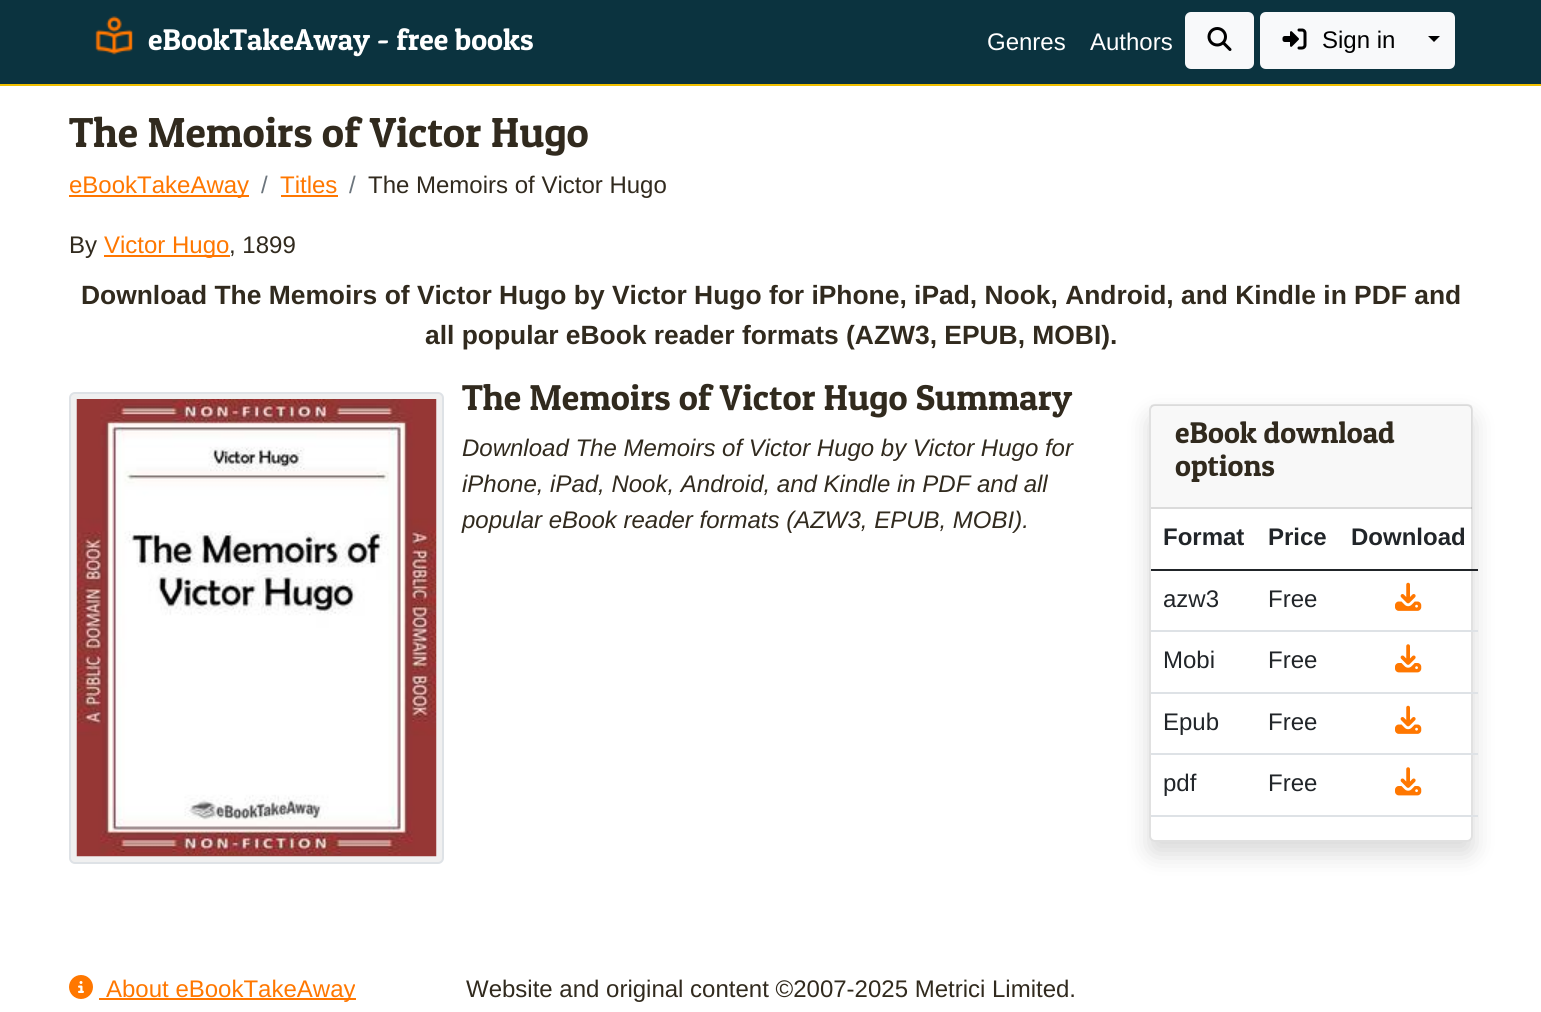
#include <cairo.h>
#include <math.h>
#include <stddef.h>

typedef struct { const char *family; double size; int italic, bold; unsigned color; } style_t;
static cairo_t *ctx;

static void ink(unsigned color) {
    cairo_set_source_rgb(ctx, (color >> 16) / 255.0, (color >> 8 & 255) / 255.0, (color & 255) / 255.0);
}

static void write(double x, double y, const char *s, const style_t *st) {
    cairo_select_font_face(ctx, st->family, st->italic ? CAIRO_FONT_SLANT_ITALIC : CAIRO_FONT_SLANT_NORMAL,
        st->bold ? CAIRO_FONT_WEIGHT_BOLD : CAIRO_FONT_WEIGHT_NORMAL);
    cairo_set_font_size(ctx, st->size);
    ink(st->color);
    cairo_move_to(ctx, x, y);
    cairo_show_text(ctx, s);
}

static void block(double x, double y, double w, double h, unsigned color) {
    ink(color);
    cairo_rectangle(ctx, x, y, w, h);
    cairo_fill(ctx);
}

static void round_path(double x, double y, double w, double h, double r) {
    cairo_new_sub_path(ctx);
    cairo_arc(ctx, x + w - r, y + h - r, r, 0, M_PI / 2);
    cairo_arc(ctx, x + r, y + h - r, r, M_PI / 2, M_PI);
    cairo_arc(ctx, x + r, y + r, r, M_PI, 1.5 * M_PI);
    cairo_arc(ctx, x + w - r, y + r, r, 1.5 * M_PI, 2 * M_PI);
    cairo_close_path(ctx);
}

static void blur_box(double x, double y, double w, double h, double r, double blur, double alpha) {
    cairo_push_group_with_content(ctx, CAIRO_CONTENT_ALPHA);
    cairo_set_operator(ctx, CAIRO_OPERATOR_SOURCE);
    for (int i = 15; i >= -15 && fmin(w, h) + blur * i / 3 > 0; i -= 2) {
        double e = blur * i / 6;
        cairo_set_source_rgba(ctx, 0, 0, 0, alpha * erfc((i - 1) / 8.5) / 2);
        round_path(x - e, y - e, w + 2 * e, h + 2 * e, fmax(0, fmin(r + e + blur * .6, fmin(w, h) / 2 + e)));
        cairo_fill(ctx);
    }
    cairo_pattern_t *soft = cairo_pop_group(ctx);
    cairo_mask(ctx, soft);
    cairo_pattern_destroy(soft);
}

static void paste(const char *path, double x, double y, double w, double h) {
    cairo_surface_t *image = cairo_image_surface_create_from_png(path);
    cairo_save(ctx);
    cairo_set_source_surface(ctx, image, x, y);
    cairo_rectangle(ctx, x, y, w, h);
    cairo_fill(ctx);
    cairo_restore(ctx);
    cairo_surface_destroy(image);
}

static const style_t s1 = {"Patua One", 30, 0, 0, 0xffffff};
static const style_t s2 = {"Liberation Sans", 24, 0, 0, 0xffffff};
static const style_t s3 = {"Liberation Sans", 24, 0, 0, 0x000000};
static const style_t s4 = {"Patua One", 42, 0, 0, 0x312a1e};
static const style_t s5 = {"Liberation Sans", 24, 0, 0, 0xff7700};
static const style_t s6 = {"Liberation Sans", 24, 0, 0, 0x6c757d};
static const style_t s7 = {"Liberation Sans", 24, 0, 0, 0x312a1e};
static const style_t s8 = {"Liberation Sans", 26.4, 0, 1, 0x312a1e};
static const style_t s9 = {"Patua One", 36, 0, 0, 0x312a1e};
static const style_t s10 = {"Liberation Sans", 24, 1, 0, 0x312a1e};
static const style_t s11 = {"Patua One", 30, 0, 0, 0x312a1e};
static const style_t s12 = {"Liberation Sans", 24, 0, 1, 0x212529};
static const style_t s13 = {"Liberation Sans", 24, 0, 0, 0x212529};

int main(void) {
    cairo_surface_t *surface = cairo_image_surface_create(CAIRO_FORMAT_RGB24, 1541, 1012);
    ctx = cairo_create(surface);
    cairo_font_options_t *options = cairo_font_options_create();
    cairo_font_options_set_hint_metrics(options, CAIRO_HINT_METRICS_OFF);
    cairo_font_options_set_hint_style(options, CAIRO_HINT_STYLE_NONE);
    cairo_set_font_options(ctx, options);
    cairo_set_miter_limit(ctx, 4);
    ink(0xffffff);
    cairo_paint(ctx);
    block(0, 0, 1541, 84, 0x0b333f);
    block(0, 84, 1541, 2, 0xf0bf00);
    paste("pic1.png", 95, 16, 38, 39);
    write(148, 50, "eBookTakeAway - free books", &s1);
    write(987, 50, "Genres", &s2);
    write(1090, 50, "Authors", &s2);
    ink(0xf8f9fa);
    round_path(1186, 13, 67, 55, 5);
    cairo_fill_preserve(ctx);
    cairo_stroke(ctx);
    paste("pic2.png", 1207, 27, 25, 24);
    cairo_new_path(ctx);
    cairo_move_to(ctx, 1266, 13);
    cairo_line_to(ctx, 1414, 13);
    cairo_line_to(ctx, 1414, 68);
    cairo_line_to(ctx, 1266, 68);
    cairo_curve_to(ctx, 1263, 68, 1261, 66, 1261, 63);
    cairo_line_to(ctx, 1261, 18);
    cairo_curve_to(ctx, 1261, 15, 1263, 13, 1266, 13);
    cairo_close_path(ctx);
    cairo_fill_preserve(ctx);
    cairo_stroke(ctx);
    paste("pic3.png", 1282, 28, 25, 22);
    write(1322, 48, "Sign in", &s3);
    ink(0xf8f9fa);
    cairo_new_path(ctx);
    cairo_move_to(ctx, 1414, 13);
    cairo_line_to(ctx, 1449, 13);
    cairo_curve_to(ctx, 1452, 13, 1454, 15, 1454, 18);
    cairo_line_to(ctx, 1454, 63);
    cairo_curve_to(ctx, 1454, 66, 1452, 68, 1449, 68);
    cairo_line_to(ctx, 1414, 68);
    cairo_close_path(ctx);
    cairo_fill_preserve(ctx);
    cairo_stroke(ctx);
    ink(0x000000);
    cairo_new_path(ctx);
    cairo_move_to(ctx, 1428, 36);
    cairo_line_to(ctx, 1440, 36);
    cairo_line_to(ctx, 1434, 42);
    cairo_close_path(ctx);
    cairo_fill(ctx);
    write(69, 147, "The Memoirs of Victor Hugo", &s4);
    block(69, 195, 180, 2, 0xff7700);
    write(69, 193, "eBookTakeAway", &s5);
    write(261, 193, "/", &s6);
    write(280, 193, "Titles", &s5);
    block(281, 195, 57, 2, 0xff7700);
    write(349, 193, "/", &s6);
    write(368, 193, "The Memoirs of Victor Hugo", &s7);
    write(69, 253, "By", &s7);
    block(104, 255, 126, 2, 0xff7700);
    write(104, 253, "Victor Hugo", &s5);
    write(229, 253, ", 1899", &s7);
    write(81, 304, "Download The Memoirs of Victor Hugo by Victor Hugo for iPhone, iPad, Nook, Android, and Kindle in PDF and", &s8);
    write(425, 344, "all popular eBook reader formats (AZW3, EPUB, MOBI).", &s8);
    ink(0xf0f0f0);
    round_path(70, 393, 373, 470, 5);
    cairo_fill_preserve(ctx);
    ink(0xdee2e6);
    cairo_stroke(ctx);
    paste("pic4.png", 76, 399, 361, 458);
    write(462, 410, "The Memoirs of Victor Hugo Summary", &s9);
    write(462, 456, "Download The Memoirs of Victor Hugo by Victor Hugo for", &s10);
    write(462, 492, "iPhone, iPad, Nook, Android, and Kindle in PDF and all", &s10);
    write(462, 528, "popular eBook reader formats (AZW3, EPUB, MOBI).", &s10);
    ink(0x000000);
    blur_box(1149, 416, 324, 438, 6, 12, 0.15);
    ink(0xffffff);
    round_path(1149, 404, 324, 438, 6);
    cairo_fill(ctx);
    round_path(1150, 405, 322, 436, 5);
    cairo_set_source_rgba(ctx, 0, 0, 0, 0.12);
    cairo_stroke(ctx);
    cairo_set_source_rgba(ctx, 0, 0, 0, 0.03);
    cairo_rectangle(ctx, 1151, 405, 321, 104);
    cairo_fill(ctx);
    cairo_set_source_rgba(ctx, 0, 0, 0, 0.12);
    cairo_rectangle(ctx, 1151, 507, 321, 2);
    cairo_fill(ctx);
    write(1175, 443, "eBook download", &s11);
    write(1175, 476, "options", &s11);
    write(1163, 545, "Format", &s12);
    write(1268, 545, "Price", &s12);
    block(1151, 569, 327, 2, 0x212529);
    write(1351, 545, "Download", &s12);
    block(1151, 630, 327, 2, 0xdee2e6);
    paste("pic5.png", 1395, 582, 27, 29);
    write(1163, 607, "azw3", &s13);
    write(1268, 607, "Free", &s13);
    block(1151, 692, 327, 2, 0xdee2e6);
    paste("pic6.png", 1395, 644, 27, 29);
    write(1163, 668, "Mobi", &s13);
    write(1268, 668, "Free", &s13);
    block(1151, 753, 327, 2, 0xdee2e6);
    paste("pic5.png", 1395, 705, 27, 29);
    write(1163, 730, "Epub", &s13);
    write(1268, 730, "Free", &s13);
    block(1151, 815, 327, 2, 0xdee2e6);
    paste("pic6.png", 1395, 767, 27, 29);
    write(1163, 791, "pdf", &s13);
    write(1268, 791, "Free", &s13);
    paste("pic7.png", 69, 975, 24, 24);
    block(99, 998, 257, 2, 0xff7700);
    write(106, 997, "About eBookTakeAway", &s5);
    write(466, 997, "Website and original content ©2007-2025 Metrici Limited.", &s7);
    cairo_surface_write_to_png(surface, "screenshot.png");
    cairo_font_options_destroy(options);
    cairo_destroy(ctx);
    cairo_surface_destroy(surface);
    return 0;
}
